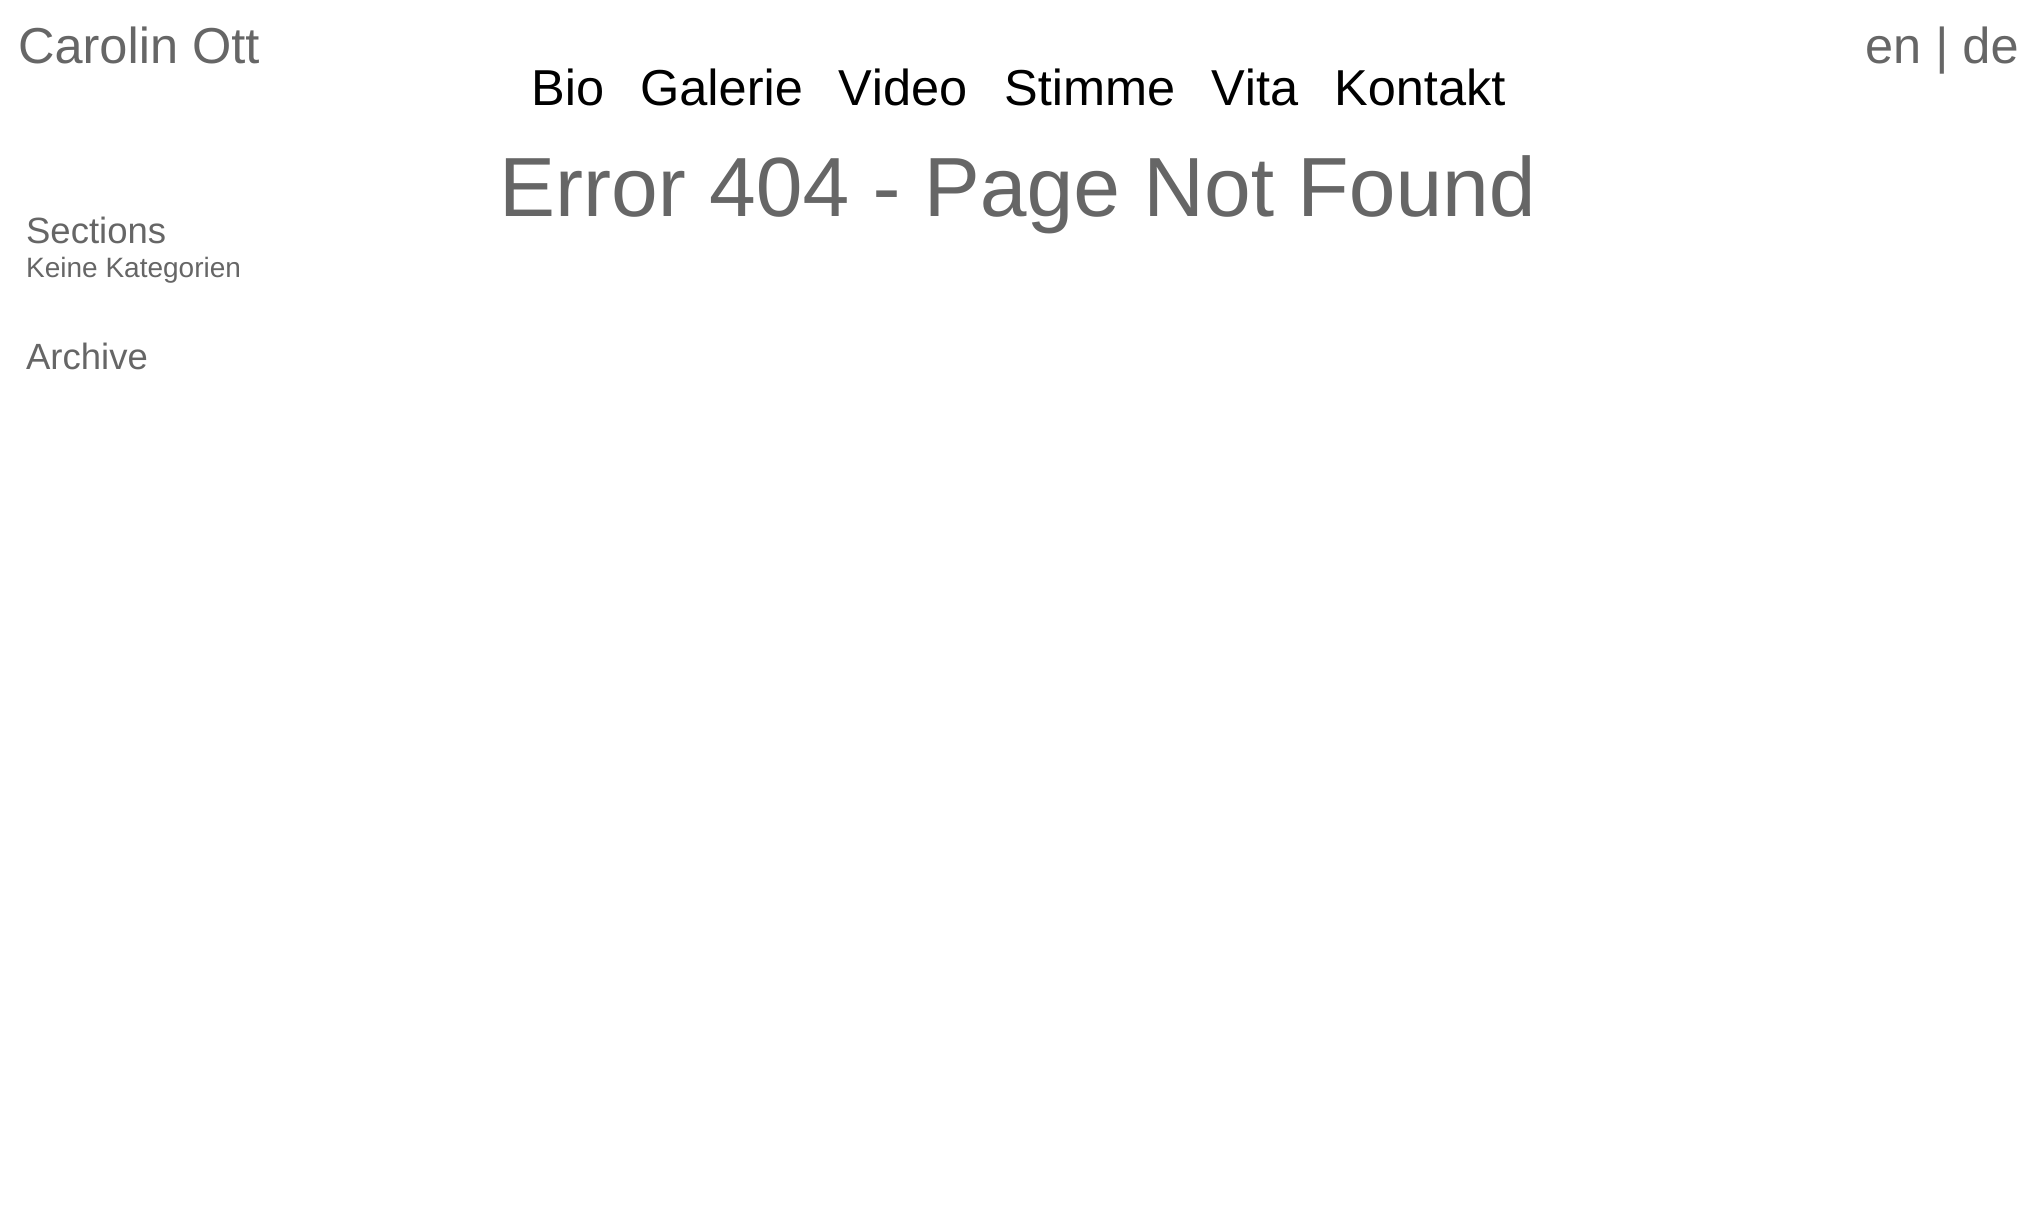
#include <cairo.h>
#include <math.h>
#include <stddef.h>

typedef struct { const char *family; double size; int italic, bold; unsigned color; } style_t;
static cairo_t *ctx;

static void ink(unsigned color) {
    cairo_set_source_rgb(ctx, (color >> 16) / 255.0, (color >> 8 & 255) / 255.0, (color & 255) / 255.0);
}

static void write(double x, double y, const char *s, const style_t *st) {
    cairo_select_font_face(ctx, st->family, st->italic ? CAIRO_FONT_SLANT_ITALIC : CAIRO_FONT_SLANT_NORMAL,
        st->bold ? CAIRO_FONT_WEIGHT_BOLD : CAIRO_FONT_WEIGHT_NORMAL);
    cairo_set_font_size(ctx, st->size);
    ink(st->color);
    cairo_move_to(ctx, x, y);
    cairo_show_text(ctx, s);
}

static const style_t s1 = {"Liberation Sans", 50.5, 0, 0, 0x666666};
static const style_t s2 = {"Liberation Sans", 50.5, 0, 0, 0x000000};
static const style_t s3 = {"Liberation Sans", 84, 0, 0, 0x666666};
static const style_t s4 = {"Liberation Sans", 36.5, 0, 0, 0x666666};
static const style_t s5 = {"Liberation Sans", 28, 0, 0, 0x666666};

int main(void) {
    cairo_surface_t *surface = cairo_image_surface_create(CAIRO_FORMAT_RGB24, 2034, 1224);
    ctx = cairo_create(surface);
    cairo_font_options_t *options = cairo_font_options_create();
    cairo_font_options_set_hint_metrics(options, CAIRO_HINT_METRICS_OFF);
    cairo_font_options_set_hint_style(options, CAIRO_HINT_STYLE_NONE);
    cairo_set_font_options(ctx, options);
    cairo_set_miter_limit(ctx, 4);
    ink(0xffffff);
    cairo_paint(ctx);
    write(18, 63, "Carolin Ott", &s1);
    write(1865, 63, "en | de", &s1);
    write(531, 105, "Bio", &s2);
    write(640, 105, "Galerie", &s2);
    write(838, 105, "Video", &s2);
    write(1004, 105, "Stimme", &s2);
    write(1211, 105, "Vita", &s2);
    write(1334, 105, "Kontakt", &s2);
    write(499, 216, "Error 404 - Page Not Found", &s3);
    write(26, 243, "Sections", &s4);
    write(26, 277, "Keine Kategorien", &s5);
    write(26, 369, "Archive", &s4);
    cairo_surface_write_to_png(surface, "screenshot.png");
    cairo_font_options_destroy(options);
    cairo_destroy(ctx);
    cairo_surface_destroy(surface);
    return 0;
}
